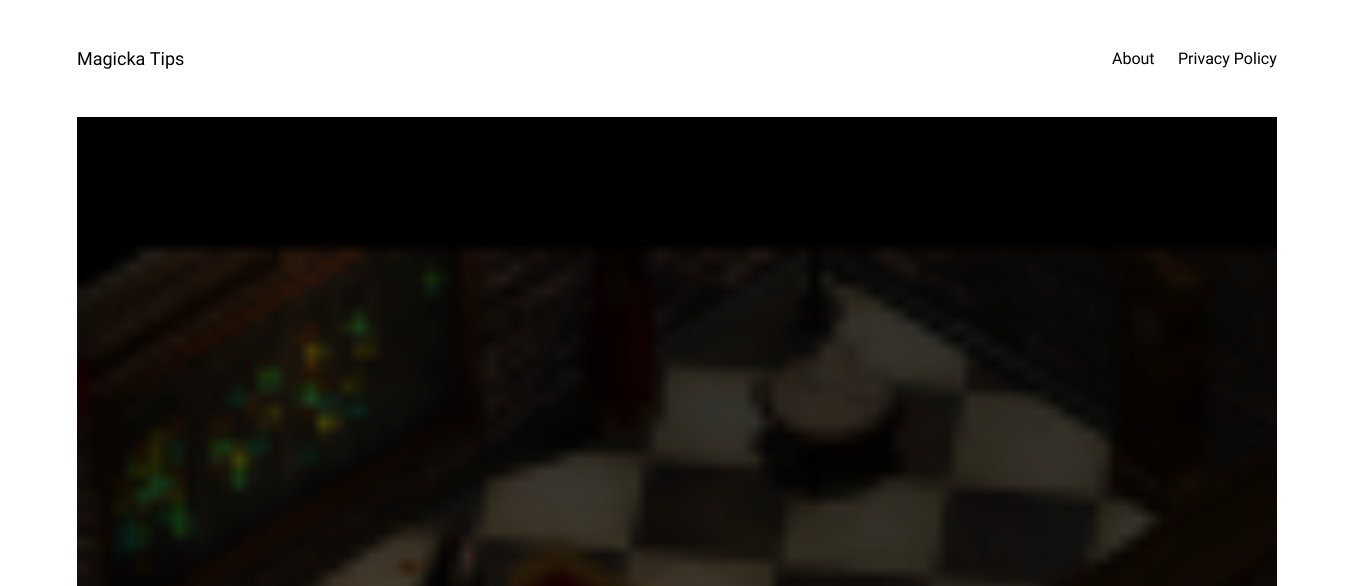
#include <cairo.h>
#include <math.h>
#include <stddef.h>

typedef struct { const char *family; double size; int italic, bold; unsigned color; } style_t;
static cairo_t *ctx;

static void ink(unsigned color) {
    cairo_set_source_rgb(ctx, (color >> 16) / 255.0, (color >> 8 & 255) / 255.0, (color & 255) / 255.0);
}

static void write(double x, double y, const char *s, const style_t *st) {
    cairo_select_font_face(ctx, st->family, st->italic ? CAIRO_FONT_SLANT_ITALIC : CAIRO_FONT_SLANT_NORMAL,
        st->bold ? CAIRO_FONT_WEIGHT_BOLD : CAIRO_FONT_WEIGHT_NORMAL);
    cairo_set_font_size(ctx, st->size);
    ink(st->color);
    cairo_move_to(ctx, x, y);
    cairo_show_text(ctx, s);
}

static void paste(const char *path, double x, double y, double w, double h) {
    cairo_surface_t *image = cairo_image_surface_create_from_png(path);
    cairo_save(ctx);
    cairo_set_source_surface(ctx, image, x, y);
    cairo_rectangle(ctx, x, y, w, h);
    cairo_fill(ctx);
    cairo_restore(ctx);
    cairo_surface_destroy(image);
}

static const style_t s1 = {"Roboto", 18, 0, 0, 0x000000};
static const style_t s2 = {"Roboto", 16, 0, 0, 0x000000};

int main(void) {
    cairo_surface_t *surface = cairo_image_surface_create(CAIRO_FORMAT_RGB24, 1354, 586);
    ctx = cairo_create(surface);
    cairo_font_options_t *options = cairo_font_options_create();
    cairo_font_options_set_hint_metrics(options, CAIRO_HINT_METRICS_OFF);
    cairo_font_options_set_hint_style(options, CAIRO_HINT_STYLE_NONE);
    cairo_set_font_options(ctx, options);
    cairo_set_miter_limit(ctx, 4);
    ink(0xffffff);
    cairo_paint(ctx);
    write(77, 65, "Magicka Tips", &s1);
    write(1112, 64, "About", &s2);
    write(1178, 64, "Privacy Policy", &s2);
    paste("pic1.png", 77, 117, 1200, 469);
    cairo_surface_write_to_png(surface, "screenshot.png");
    cairo_font_options_destroy(options);
    cairo_destroy(ctx);
    cairo_surface_destroy(surface);
    return 0;
}
